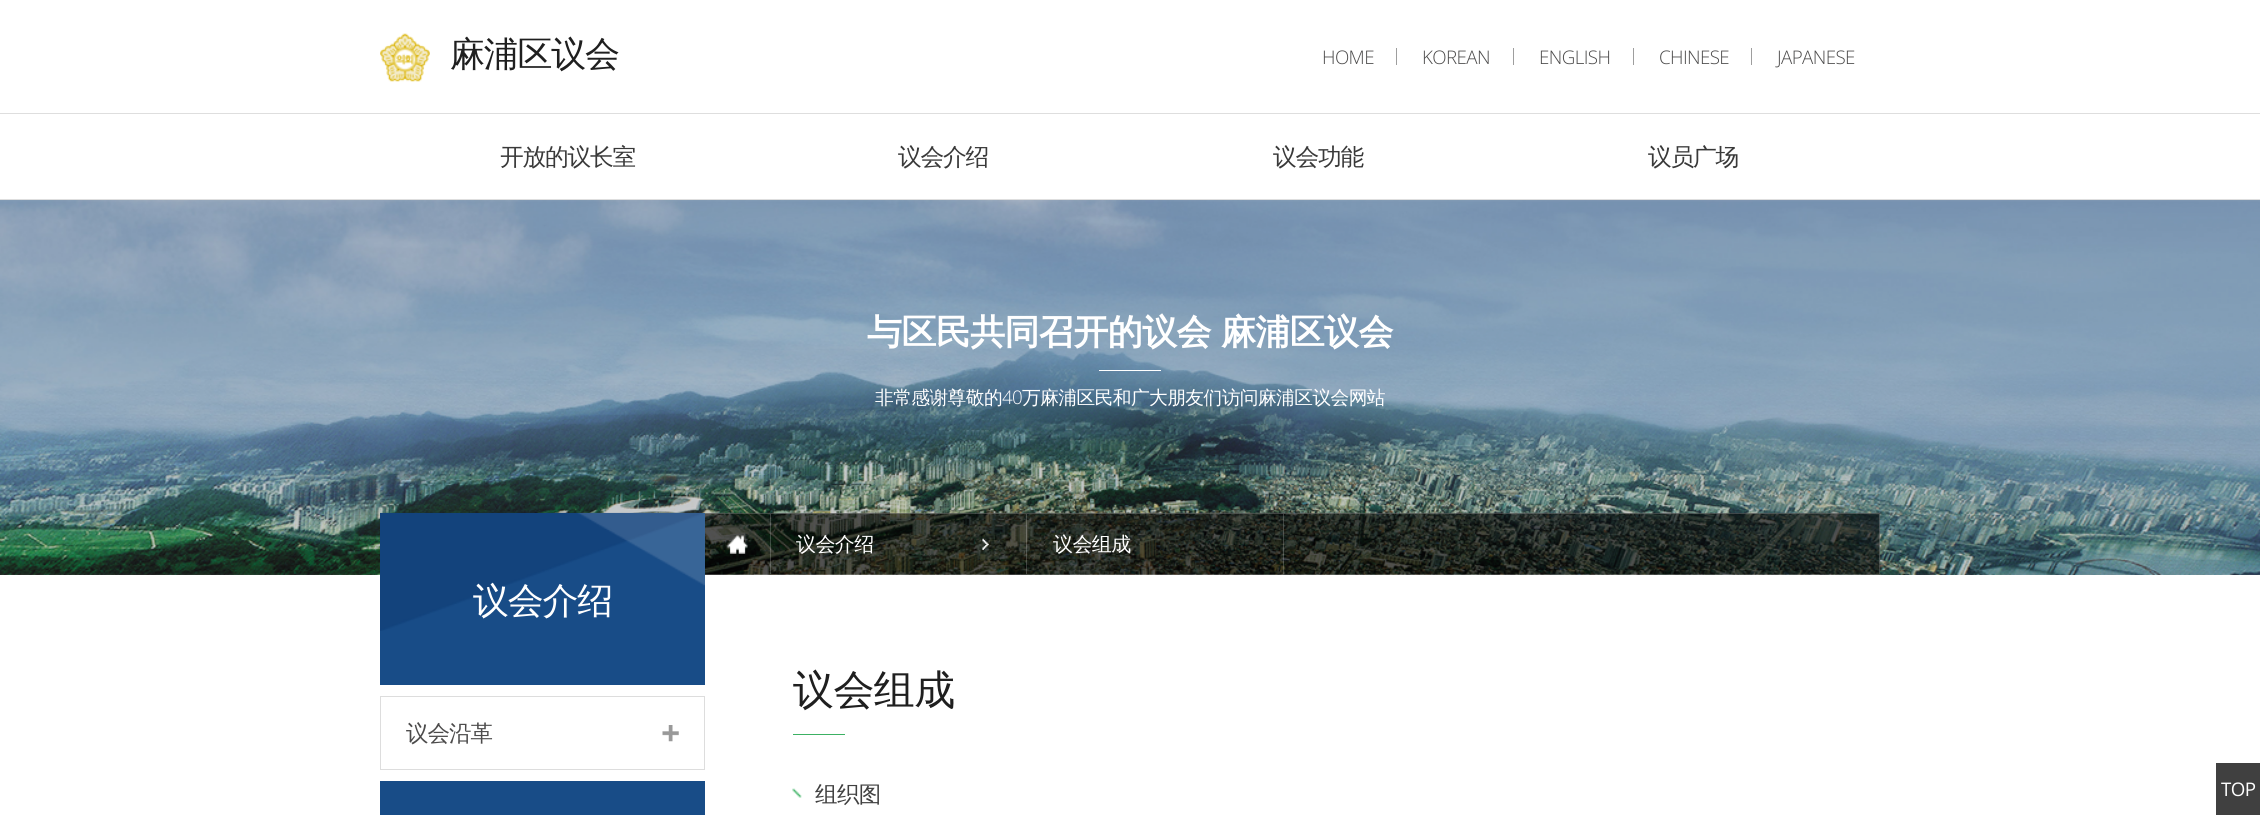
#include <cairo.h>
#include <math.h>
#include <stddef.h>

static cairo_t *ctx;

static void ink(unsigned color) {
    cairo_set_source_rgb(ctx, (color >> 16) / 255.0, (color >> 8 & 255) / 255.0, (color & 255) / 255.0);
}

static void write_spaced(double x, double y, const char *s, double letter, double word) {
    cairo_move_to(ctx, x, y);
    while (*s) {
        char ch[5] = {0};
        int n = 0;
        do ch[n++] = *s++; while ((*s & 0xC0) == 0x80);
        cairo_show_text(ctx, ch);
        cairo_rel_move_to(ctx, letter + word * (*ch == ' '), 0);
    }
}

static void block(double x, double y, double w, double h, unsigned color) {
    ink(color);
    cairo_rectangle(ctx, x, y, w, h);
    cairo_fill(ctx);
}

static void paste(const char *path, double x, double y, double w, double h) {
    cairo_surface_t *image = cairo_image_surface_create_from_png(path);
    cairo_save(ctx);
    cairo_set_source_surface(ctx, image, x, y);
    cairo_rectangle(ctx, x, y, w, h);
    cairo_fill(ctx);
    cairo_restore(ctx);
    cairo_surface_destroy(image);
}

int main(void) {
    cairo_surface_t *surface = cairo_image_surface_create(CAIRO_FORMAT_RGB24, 2260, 815);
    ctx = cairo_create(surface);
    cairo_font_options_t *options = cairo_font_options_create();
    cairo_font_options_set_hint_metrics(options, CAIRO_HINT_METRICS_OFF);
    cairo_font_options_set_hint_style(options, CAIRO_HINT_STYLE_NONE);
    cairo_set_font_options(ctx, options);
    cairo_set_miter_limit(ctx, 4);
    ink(0xffffff);
    cairo_paint(ctx);
    paste("pic1.png", 380, 33, 50, 49);
    cairo_select_font_face(ctx, "WenQuanYi Zen Hei Medium", CAIRO_FONT_SLANT_NORMAL, CAIRO_FONT_WEIGHT_NORMAL);
    cairo_set_font_size(ctx, 35);
    ink(0x1f1f1f);
    write_spaced(450, 66, "麻浦区议会", -1.25, 0);
    cairo_select_font_face(ctx, "Open Sans Light", CAIRO_FONT_SLANT_NORMAL, CAIRO_FONT_WEIGHT_NORMAL);
    cairo_set_font_size(ctx, 18.75);
    ink(0x4c4b4b);
    write_spaced(1322, 64, "HOME", -0.6, 0);
    block(1396, 48, 1, 17, 0x9e9e9e);
    ink(0x4c4b4b);
    write_spaced(1422, 64, "KOREAN", -0.6, 0);
    block(1513, 48, 1, 17, 0x9e9e9e);
    ink(0x4c4b4b);
    write_spaced(1539, 64, "ENGLISH", -0.6, 0);
    block(1633, 48, 1, 17, 0x9e9e9e);
    ink(0x4c4b4b);
    write_spaced(1659, 64, "CHINESE", -0.6, 0);
    block(1751, 48, 1, 17, 0x9e9e9e);
    ink(0x4c4b4b);
    write_spaced(1777, 64, "JAPANESE", -0.6, 0);
    block(0, 113, 2260, 1, 0xdedede);
    block(0, 199, 2260, 1, 0xdedede);
    cairo_select_font_face(ctx, "WenQuanYi Zen Hei Medium", CAIRO_FONT_SLANT_NORMAL, CAIRO_FONT_WEIGHT_NORMAL);
    cairo_set_font_size(ctx, 23.75);
    ink(0x393939);
    write_spaced(500, 165, "开放的议长室", -1.25, 0);
    write_spaced(898, 165, "议会介绍", -1.25, 0);
    write_spaced(1273, 165, "议会功能", -1.25, 0);
    write_spaced(1648, 165, "议员广场", -1.25, 0);
    paste("pic2.png", 0, 200, 2260, 375);
    cairo_select_font_face(ctx, "WenQuanYi Zen Hei", CAIRO_FONT_SLANT_NORMAL, CAIRO_FONT_WEIGHT_BOLD);
    cairo_set_font_size(ctx, 35);
    ink(0xffffff);
    write_spaced(867, 344, "与区民共同召开的议会 麻浦区议会", -0.6, 0);
    block(1099, 370, 62, 1, 0xffffff);
    cairo_select_font_face(ctx, "WenQuanYi Zen Hei Medium", CAIRO_FONT_SLANT_NORMAL, CAIRO_FONT_WEIGHT_NORMAL);
    cairo_set_font_size(ctx, 18.75);
    write_spaced(875, 404, "非常感谢尊敬的", -0.6, 0);
    cairo_select_font_face(ctx, "Open Sans Light", CAIRO_FONT_SLANT_NORMAL, CAIRO_FONT_WEIGHT_NORMAL);
    write_spaced(1002, 404, "40", -0.6, 0);
    cairo_select_font_face(ctx, "WenQuanYi Zen Hei Medium", CAIRO_FONT_SLANT_NORMAL, CAIRO_FONT_WEIGHT_NORMAL);
    write_spaced(1022, 404, "万麻浦区民和广大朋友们访问麻浦区议会网站", -0.6, 0);
    block(380, 513, 325, 172, 0x184c87);
    paste("pic3.png", 380, 512, 325, 119);
    cairo_set_font_size(ctx, 36);
    ink(0xffffff);
    write_spaced(473, 613, "议会介绍", -1.25, 0);
    cairo_rectangle(ctx, 380.5, 696.5, 324, 73);
    ink(0xdddddd);
    cairo_set_line_width(ctx, 1);
    cairo_stroke(ctx);
    cairo_set_font_size(ctx, 22.5);
    ink(0x4c4b4b);
    write_spaced(406, 741, "议会沿革", -1, 0);
    paste("pic4.png", 662, 725, 17, 17);
    block(380, 781, 325, 34, 0x184c87);
    cairo_set_source_rgba(ctx, 0, 0, 0, 0.6);
    cairo_rectangle(ctx, 705, 513, 1175, 62);
    cairo_fill(ctx);
    cairo_save(ctx);
    cairo_rectangle(ctx, 705, 513, 1175, 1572);
    cairo_clip(ctx);
    cairo_set_source_rgba(ctx, 1, 1, 1, 0.2);
    cairo_new_path(ctx);
    cairo_move_to(ctx, 705, 512);
    cairo_line_to(ctx, 1880, 512);
    cairo_line_to(ctx, 1879, 514);
    cairo_line_to(ctx, 705, 514);
    cairo_close_path(ctx);
    cairo_fill(ctx);
    cairo_restore(ctx);
    cairo_set_source_rgba(ctx, 1, 1, 1, 0.2);
    cairo_new_path(ctx);
    cairo_move_to(ctx, 1880, 512);
    cairo_line_to(ctx, 1880, 575);
    cairo_line_to(ctx, 1879, 574);
    cairo_line_to(ctx, 1879, 514);
    cairo_close_path(ctx);
    cairo_fill(ctx);
    cairo_new_path(ctx);
    cairo_move_to(ctx, 1880, 575);
    cairo_line_to(ctx, 705, 575);
    cairo_line_to(ctx, 705, 574);
    cairo_line_to(ctx, 1879, 574);
    cairo_close_path(ctx);
    cairo_fill(ctx);
    paste("pic5.png", 727, 535, 21, 19);
    cairo_rectangle(ctx, 770, 514, 1, 60);
    cairo_fill(ctx);
    cairo_rectangle(ctx, 1026, 514, 1, 60);
    cairo_fill(ctx);
    cairo_set_font_size(ctx, 20);
    ink(0xffffff);
    write_spaced(796, 551, "议会介绍", -0.6, 0);
    paste("pic6.png", 982, 538, 7, 12);
    cairo_set_source_rgba(ctx, 1, 1, 1, 0.2);
    cairo_rectangle(ctx, 1283, 514, 1, 60);
    cairo_fill(ctx);
    ink(0xffffff);
    write_spaced(1053, 551, "议会组成", -0.6, 0);
    cairo_set_font_size(ctx, 41);
    ink(0x1f1f1f);
    write_spaced(793, 704, "议会组成", -0.6, 0);
    block(793, 734, 52, 1, 0x3cb163);
    paste("pic7.png", 792, 788, 10, 10);
    cairo_set_font_size(ctx, 22.5);
    ink(0x404040);
    write_spaced(815, 802, "组织图", -0.6, 0);
    block(2216, 763, 44, 52, 0x404040);
    cairo_select_font_face(ctx, "Open Sans", CAIRO_FONT_SLANT_NORMAL, CAIRO_FONT_WEIGHT_NORMAL);
    cairo_set_font_size(ctx, 18.75);
    ink(0xffffff);
    write_spaced(2221, 796, "TOP", -0.6, 0);
    cairo_surface_write_to_png(surface, "screenshot.png");
    cairo_font_options_destroy(options);
    cairo_destroy(ctx);
    cairo_surface_destroy(surface);
    return 0;
}
